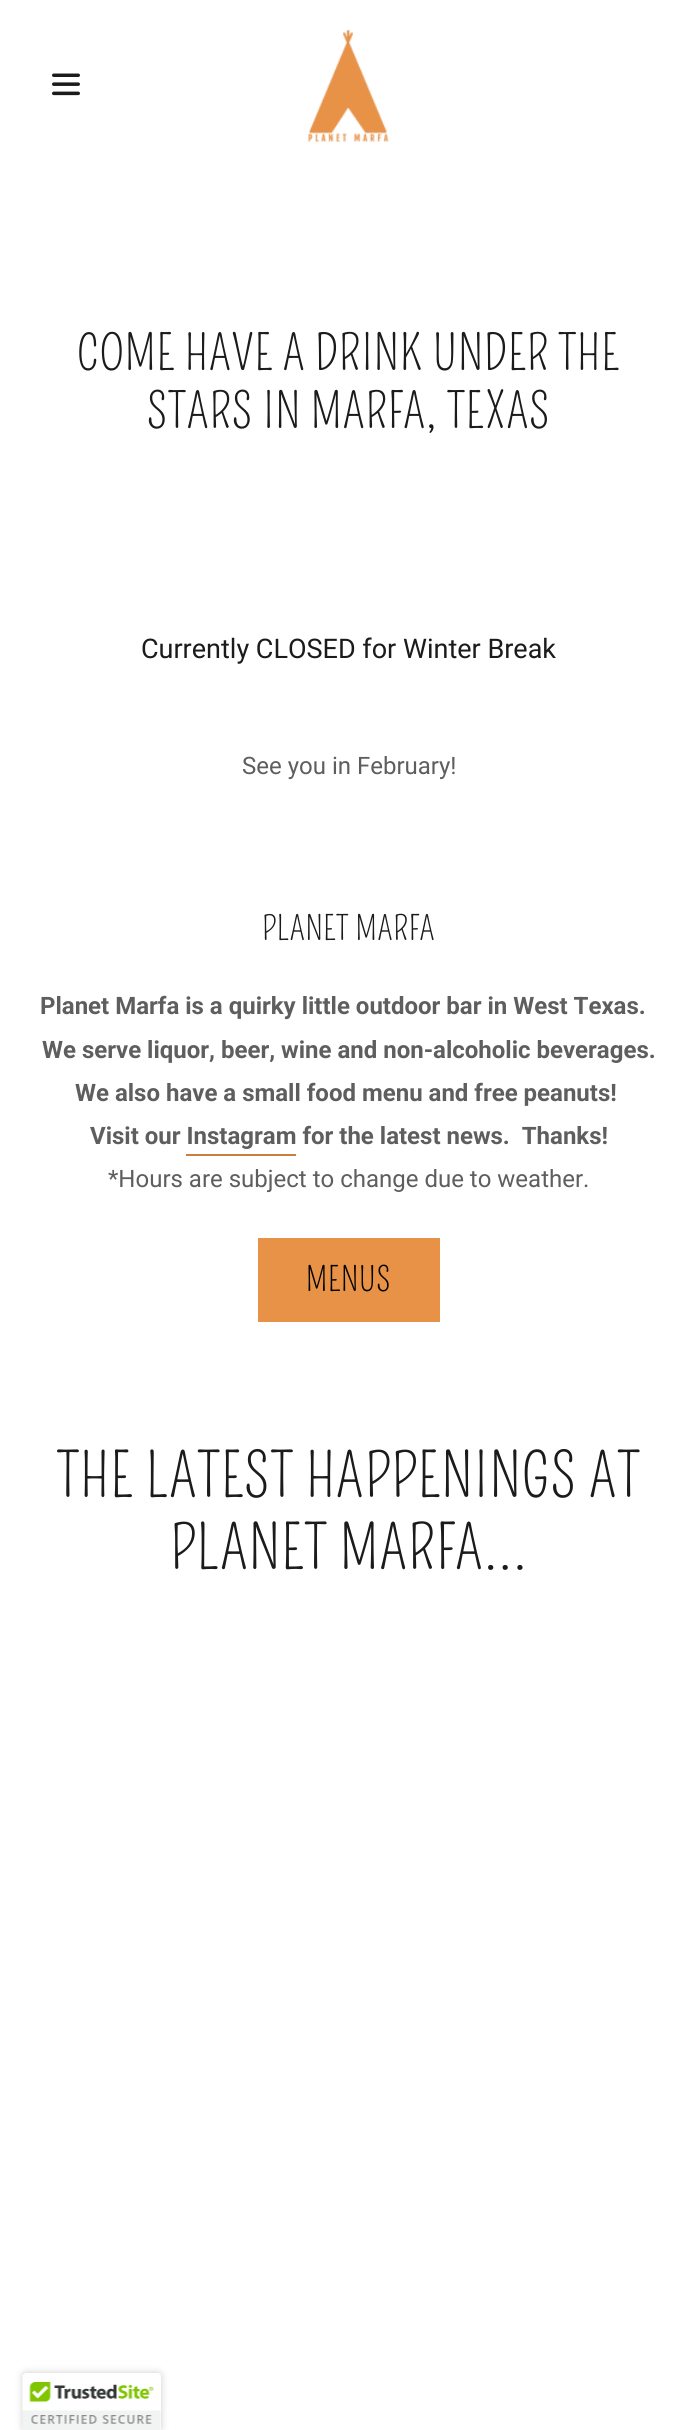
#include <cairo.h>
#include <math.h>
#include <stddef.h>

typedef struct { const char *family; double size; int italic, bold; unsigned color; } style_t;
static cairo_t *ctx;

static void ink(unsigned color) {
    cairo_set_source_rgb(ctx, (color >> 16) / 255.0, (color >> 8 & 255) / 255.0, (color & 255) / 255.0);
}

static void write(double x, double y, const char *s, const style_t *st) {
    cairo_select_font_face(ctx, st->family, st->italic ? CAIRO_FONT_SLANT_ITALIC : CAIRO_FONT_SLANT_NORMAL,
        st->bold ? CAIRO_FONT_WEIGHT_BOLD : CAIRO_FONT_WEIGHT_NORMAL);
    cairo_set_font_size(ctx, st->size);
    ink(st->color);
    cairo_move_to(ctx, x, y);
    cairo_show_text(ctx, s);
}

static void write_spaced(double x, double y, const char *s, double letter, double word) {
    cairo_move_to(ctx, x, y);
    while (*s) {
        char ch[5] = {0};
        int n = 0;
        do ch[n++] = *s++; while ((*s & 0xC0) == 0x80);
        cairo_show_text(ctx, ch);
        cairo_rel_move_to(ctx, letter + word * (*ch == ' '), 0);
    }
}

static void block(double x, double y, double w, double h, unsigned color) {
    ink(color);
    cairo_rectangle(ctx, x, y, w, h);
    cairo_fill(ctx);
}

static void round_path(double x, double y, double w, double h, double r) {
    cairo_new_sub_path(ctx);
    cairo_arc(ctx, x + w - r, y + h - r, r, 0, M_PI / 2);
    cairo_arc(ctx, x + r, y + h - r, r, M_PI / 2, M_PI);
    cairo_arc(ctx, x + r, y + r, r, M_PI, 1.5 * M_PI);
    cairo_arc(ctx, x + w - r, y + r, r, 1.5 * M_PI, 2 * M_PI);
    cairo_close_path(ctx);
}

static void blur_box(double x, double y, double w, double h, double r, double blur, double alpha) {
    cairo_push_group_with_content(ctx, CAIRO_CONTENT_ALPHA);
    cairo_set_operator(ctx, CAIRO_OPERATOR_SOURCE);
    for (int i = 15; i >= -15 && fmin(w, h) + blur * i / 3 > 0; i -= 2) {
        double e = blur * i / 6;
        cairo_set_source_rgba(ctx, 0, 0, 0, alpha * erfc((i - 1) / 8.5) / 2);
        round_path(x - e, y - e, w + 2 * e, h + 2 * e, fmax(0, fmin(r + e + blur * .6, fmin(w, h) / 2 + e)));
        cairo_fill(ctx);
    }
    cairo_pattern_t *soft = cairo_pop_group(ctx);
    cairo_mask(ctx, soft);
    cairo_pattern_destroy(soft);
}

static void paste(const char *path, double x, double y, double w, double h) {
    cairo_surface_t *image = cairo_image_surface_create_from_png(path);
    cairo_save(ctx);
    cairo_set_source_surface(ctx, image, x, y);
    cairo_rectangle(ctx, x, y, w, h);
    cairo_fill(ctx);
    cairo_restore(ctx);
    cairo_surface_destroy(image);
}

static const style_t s1 = {"Roboto", 27, 0, 0, 0x1b1b1b};
static const style_t s2 = {"Roboto", 24, 0, 0, 0x5e5e5e};
static const style_t s3 = {"Roboto", 24, 0, 1, 0x5e5e5e};

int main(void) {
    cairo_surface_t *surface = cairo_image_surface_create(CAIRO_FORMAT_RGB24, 697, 2430);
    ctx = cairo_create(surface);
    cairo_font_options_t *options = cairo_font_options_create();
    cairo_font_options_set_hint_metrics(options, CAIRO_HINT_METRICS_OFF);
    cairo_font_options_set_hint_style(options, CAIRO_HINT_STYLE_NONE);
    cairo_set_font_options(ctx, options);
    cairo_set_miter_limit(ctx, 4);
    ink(0xffffff);
    cairo_paint(ctx);
    paste("pic1.png", 52, 73, 28, 23);
    paste("pic2.png", 308, 29, 81, 113);
    cairo_select_font_face(ctx, "Pompiere", CAIRO_FONT_SLANT_NORMAL, CAIRO_FONT_WEIGHT_NORMAL);
    cairo_set_font_size(ctx, 48);
    ink(0x1b1b1b);
    write_spaced(77, 370, "COME HAVE A DRINK UNDER THE", 0.95, 0);
    write_spaced(147, 428, "STARS IN MARFA, TEXAS", 0.95, 0);
    write(141, 658, "Currently CLOSED for Winter Break", &s1);
    write(242, 774, "See you in February!", &s2);
    cairo_select_font_face(ctx, "Pompiere", CAIRO_FONT_SLANT_NORMAL, CAIRO_FONT_WEIGHT_NORMAL);
    cairo_set_font_size(ctx, 33);
    ink(0x1b1b1b);
    write_spaced(262, 940, "PLANET MARFA", 0.7, 0);
    write(40, 1014, "Planet Marfa is a quirky little outdoor bar in West Texas.", &s3);
    write(42, 1058, "We serve liquor, beer, wine and non-alcoholic beverages.", &s3);
    write(75, 1101, "We also have a small food menu and free peanuts!", &s3);
    write(90, 1144, "Visit our Instagram for the latest news.  Thanks!", &s3);
    block(186, 1154, 110, 2, 0xcb7f3e);
    write(108, 1187, "*Hours are subject to change due to weather.", &s2);
    block(258, 1238, 182, 84, 0xe89248);
    cairo_select_font_face(ctx, "Pompiere", CAIRO_FONT_SLANT_NORMAL, CAIRO_FONT_WEIGHT_NORMAL);
    cairo_set_font_size(ctx, 33);
    ink(0x000000);
    write_spaced(306, 1291, "MENUS", 0.7, 0);
    cairo_set_font_size(ctx, 60);
    ink(0x1b1b1b);
    write_spaced(57, 1497, "THE LATEST HAPPENINGS AT", 1.2, 0);
    write_spaced(170, 1569, "PLANET MARFA...", 1.2, 0);
    ink(0x000000);
    blur_box(23, 2373, 138, 57, 3, 4, 0.2);
    ink(0xffffff);
    cairo_new_path(ctx);
    cairo_move_to(ctx, 26, 2373);
    cairo_line_to(ctx, 158, 2373);
    cairo_curve_to(ctx, 159.5, 2373, 161, 2374.5, 161, 2376);
    cairo_line_to(ctx, 161, 2430);
    cairo_line_to(ctx, 23, 2430);
    cairo_line_to(ctx, 23, 2376);
    cairo_curve_to(ctx, 23, 2374.5, 24.5, 2373, 26, 2373);
    cairo_close_path(ctx);
    cairo_fill(ctx);
    paste("pic3.png", 22, 2375, 139, 55);
    cairo_surface_write_to_png(surface, "screenshot.png");
    cairo_font_options_destroy(options);
    cairo_destroy(ctx);
    cairo_surface_destroy(surface);
    return 0;
}
